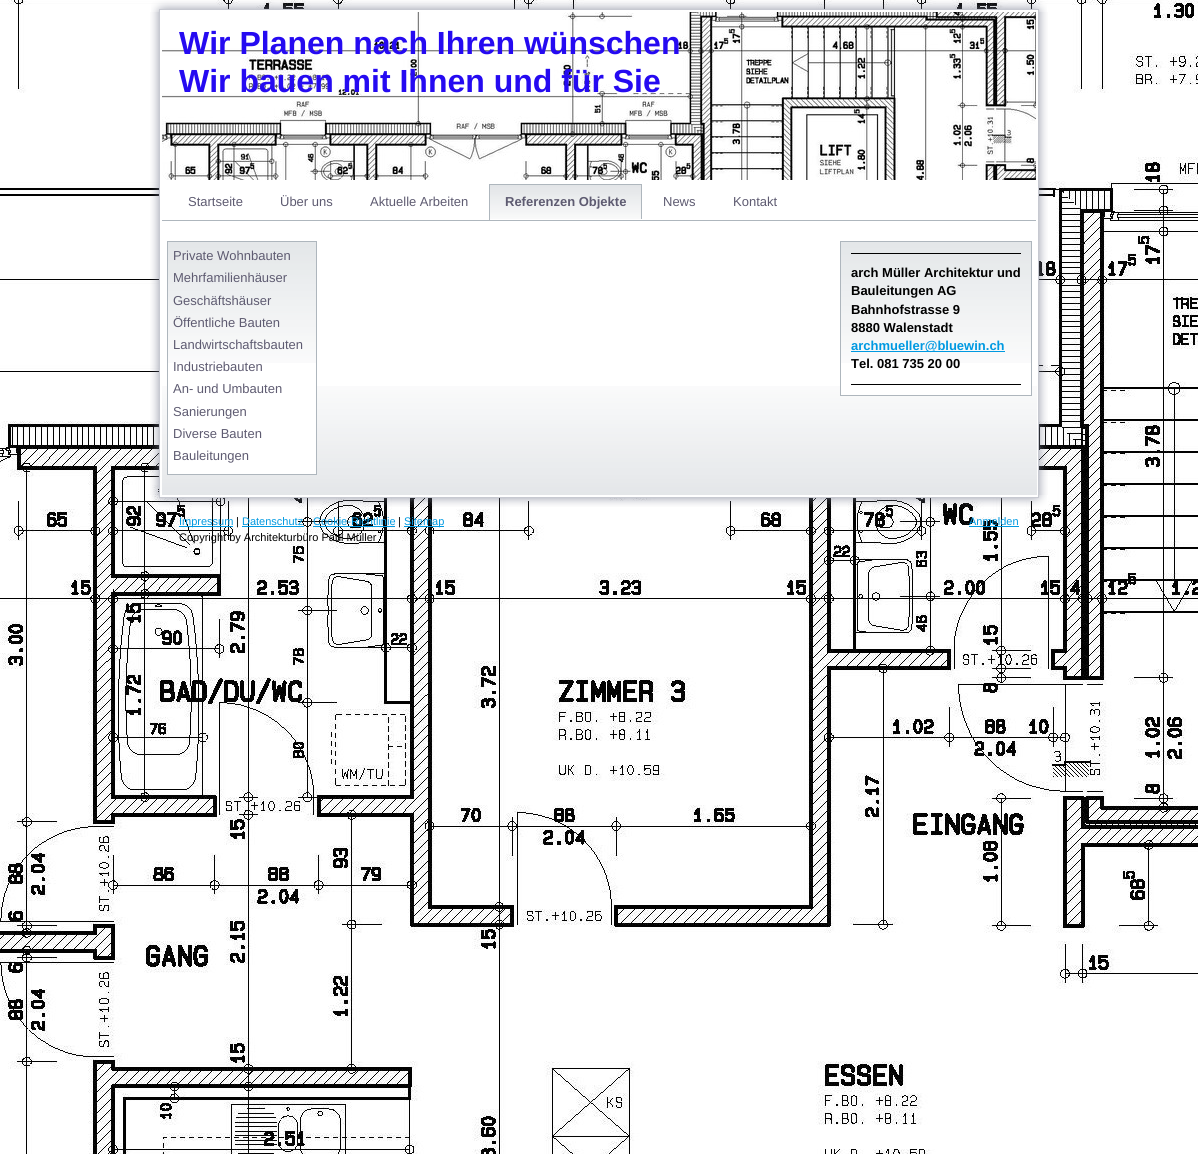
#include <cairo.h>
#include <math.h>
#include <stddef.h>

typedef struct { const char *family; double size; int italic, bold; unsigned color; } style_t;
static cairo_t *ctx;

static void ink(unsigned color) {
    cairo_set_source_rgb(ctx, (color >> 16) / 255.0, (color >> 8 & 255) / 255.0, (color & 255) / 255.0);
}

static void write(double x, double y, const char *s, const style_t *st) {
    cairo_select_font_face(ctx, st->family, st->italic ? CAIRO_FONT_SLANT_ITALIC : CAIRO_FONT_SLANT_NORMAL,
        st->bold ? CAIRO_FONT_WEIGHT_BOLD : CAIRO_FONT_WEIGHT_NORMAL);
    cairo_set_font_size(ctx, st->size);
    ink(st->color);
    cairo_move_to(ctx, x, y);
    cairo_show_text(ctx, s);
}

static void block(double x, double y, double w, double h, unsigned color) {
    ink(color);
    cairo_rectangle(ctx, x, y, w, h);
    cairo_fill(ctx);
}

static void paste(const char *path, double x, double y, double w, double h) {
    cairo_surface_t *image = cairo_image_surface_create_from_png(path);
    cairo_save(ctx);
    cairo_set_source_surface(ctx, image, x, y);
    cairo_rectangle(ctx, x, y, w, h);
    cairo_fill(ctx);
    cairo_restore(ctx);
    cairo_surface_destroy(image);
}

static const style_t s1 = {"Liberation Sans", 32, 0, 1, 0x250af1};
static const style_t s2 = {"Liberation Sans", 13, 0, 0, 0x5e5b71};
static const style_t s3 = {"Liberation Sans", 13, 0, 1, 0x5e5b71};
static const style_t s4 = {"Liberation Sans", 13, 0, 1, 0x000000};
static const style_t s5 = {"Liberation Sans", 13, 0, 1, 0x0099e1};
static const style_t s6 = {"Liberation Sans", 11, 0, 0, 0x0099e1};
static const style_t s7 = {"Liberation Sans", 11, 0, 0, 0x000000};

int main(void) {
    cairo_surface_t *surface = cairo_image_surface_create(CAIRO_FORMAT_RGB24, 1198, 1154);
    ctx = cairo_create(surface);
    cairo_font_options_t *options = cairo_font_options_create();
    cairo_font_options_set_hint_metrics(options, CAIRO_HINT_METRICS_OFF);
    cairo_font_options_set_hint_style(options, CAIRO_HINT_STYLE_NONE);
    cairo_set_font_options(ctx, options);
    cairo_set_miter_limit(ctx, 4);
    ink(0xffffff);
    cairo_paint(ctx);
    paste("pic1.png", 0, 0, 1198, 1154);
    paste("pic2.png", 151, 0, 896, 12);
    paste("pic3.png", 150, 12, 898, 483);
    paste("pic4.png", 162, 12, 874, 168);
    write(179, 54, "Wir Planen nach Ihren wünschen", &s1);
    write(179, 92, "Wir bauen mit Ihnen und für Sie", &s1);
    block(162, 220, 874, 1, 0xaeb6bd);
    write(188, 206, "Startseite", &s2);
    write(280, 206, "Über uns", &s2);
    write(370, 206, "Aktuelle Arbeiten", &s2);
    paste("pic5.png", 490, 185, 151, 34);
    block(489, 184, 153, 1, 0xaeb6bd);
    block(641, 184, 1, 36, 0xaeb6bd);
    block(641, 219, 1, 1, 0xffffff);
    block(489, 184, 1, 36, 0xaeb6bd);
    write(505, 206, "Referenzen Objekte", &s3);
    write(663, 206, "News", &s2);
    write(733, 206, "Kontakt", &s2);
    paste("pic6.png", 162, 386, 875, 109);
    block(168, 386, 148, 88, 0xffffff);
    paste("pic7.png", 168, 242, 148, 121);
    cairo_rectangle(ctx, 167.5, 241.5, 149, 233);
    ink(0xaeb6bd);
    cairo_set_line_width(ctx, 1);
    cairo_stroke(ctx);
    write(173, 260, "Private Wohnbauten", &s2);
    write(173, 282, "Mehrfamilienhäuser", &s2);
    write(173, 305, "Geschäftshäuser", &s2);
    write(173, 327, "Öffentliche Bauten", &s2);
    write(173, 349, "Landwirtschaftsbauten", &s2);
    write(173, 371, "Industriebauten", &s2);
    write(173, 393, "An- und Umbauten", &s2);
    write(173, 416, "Sanierungen", &s2);
    write(173, 438, "Diverse Bauten", &s2);
    write(173, 460, "Bauleitungen", &s2);
    block(841, 386, 190, 9, 0xffffff);
    paste("pic8.png", 841, 242, 190, 121);
    cairo_rectangle(ctx, 840.5, 241.5, 191, 154);
    ink(0xaeb6bd);
    cairo_stroke(ctx);
    block(851, 253, 170, 1, 0x000000);
    write(851, 277, "arch Müller Architektur und", &s4);
    write(851, 295, "Bauleitungen AG", &s4);
    write(851, 314, "Bahnhofstrasse 9", &s4);
    write(851, 332, "8880 Walenstadt", &s4);
    block(851, 351, 154, 1, 0x0099e1);
    write(851, 350, "archmueller@bluewin.ch", &s5);
    write(851, 368, "Tel. 081 735 20 00", &s4);
    block(851, 384, 170, 1, 0x000000);
    paste("pic9.png", 151, 495, 896, 12);
    block(179, 526, 54, 1, 0x0099e1);
    write(179, 525, "Impressum", &s6);
    write(236, 525, "|", &s7);
    write(242, 525, "Datenschutz", &s6);
    block(242, 526, 62, 1, 0x0099e1);
    write(313, 525, "Cookie-Richtlinie", &s6);
    block(313, 526, 82, 1, 0x0099e1);
    write(398, 525, "|", &s7);
    block(404, 526, 40, 1, 0x0099e1);
    write(404, 525, "Sitemap", &s6);
    write(179, 541, "Copyright by Architekturbüro Paul Müller", &s7);
    write(969, 525, "Anmelden", &s6);
    block(969, 526, 50, 1, 0x0099e1);
    cairo_surface_write_to_png(surface, "screenshot.png");
    cairo_font_options_destroy(options);
    cairo_destroy(ctx);
    cairo_surface_destroy(surface);
    return 0;
}
